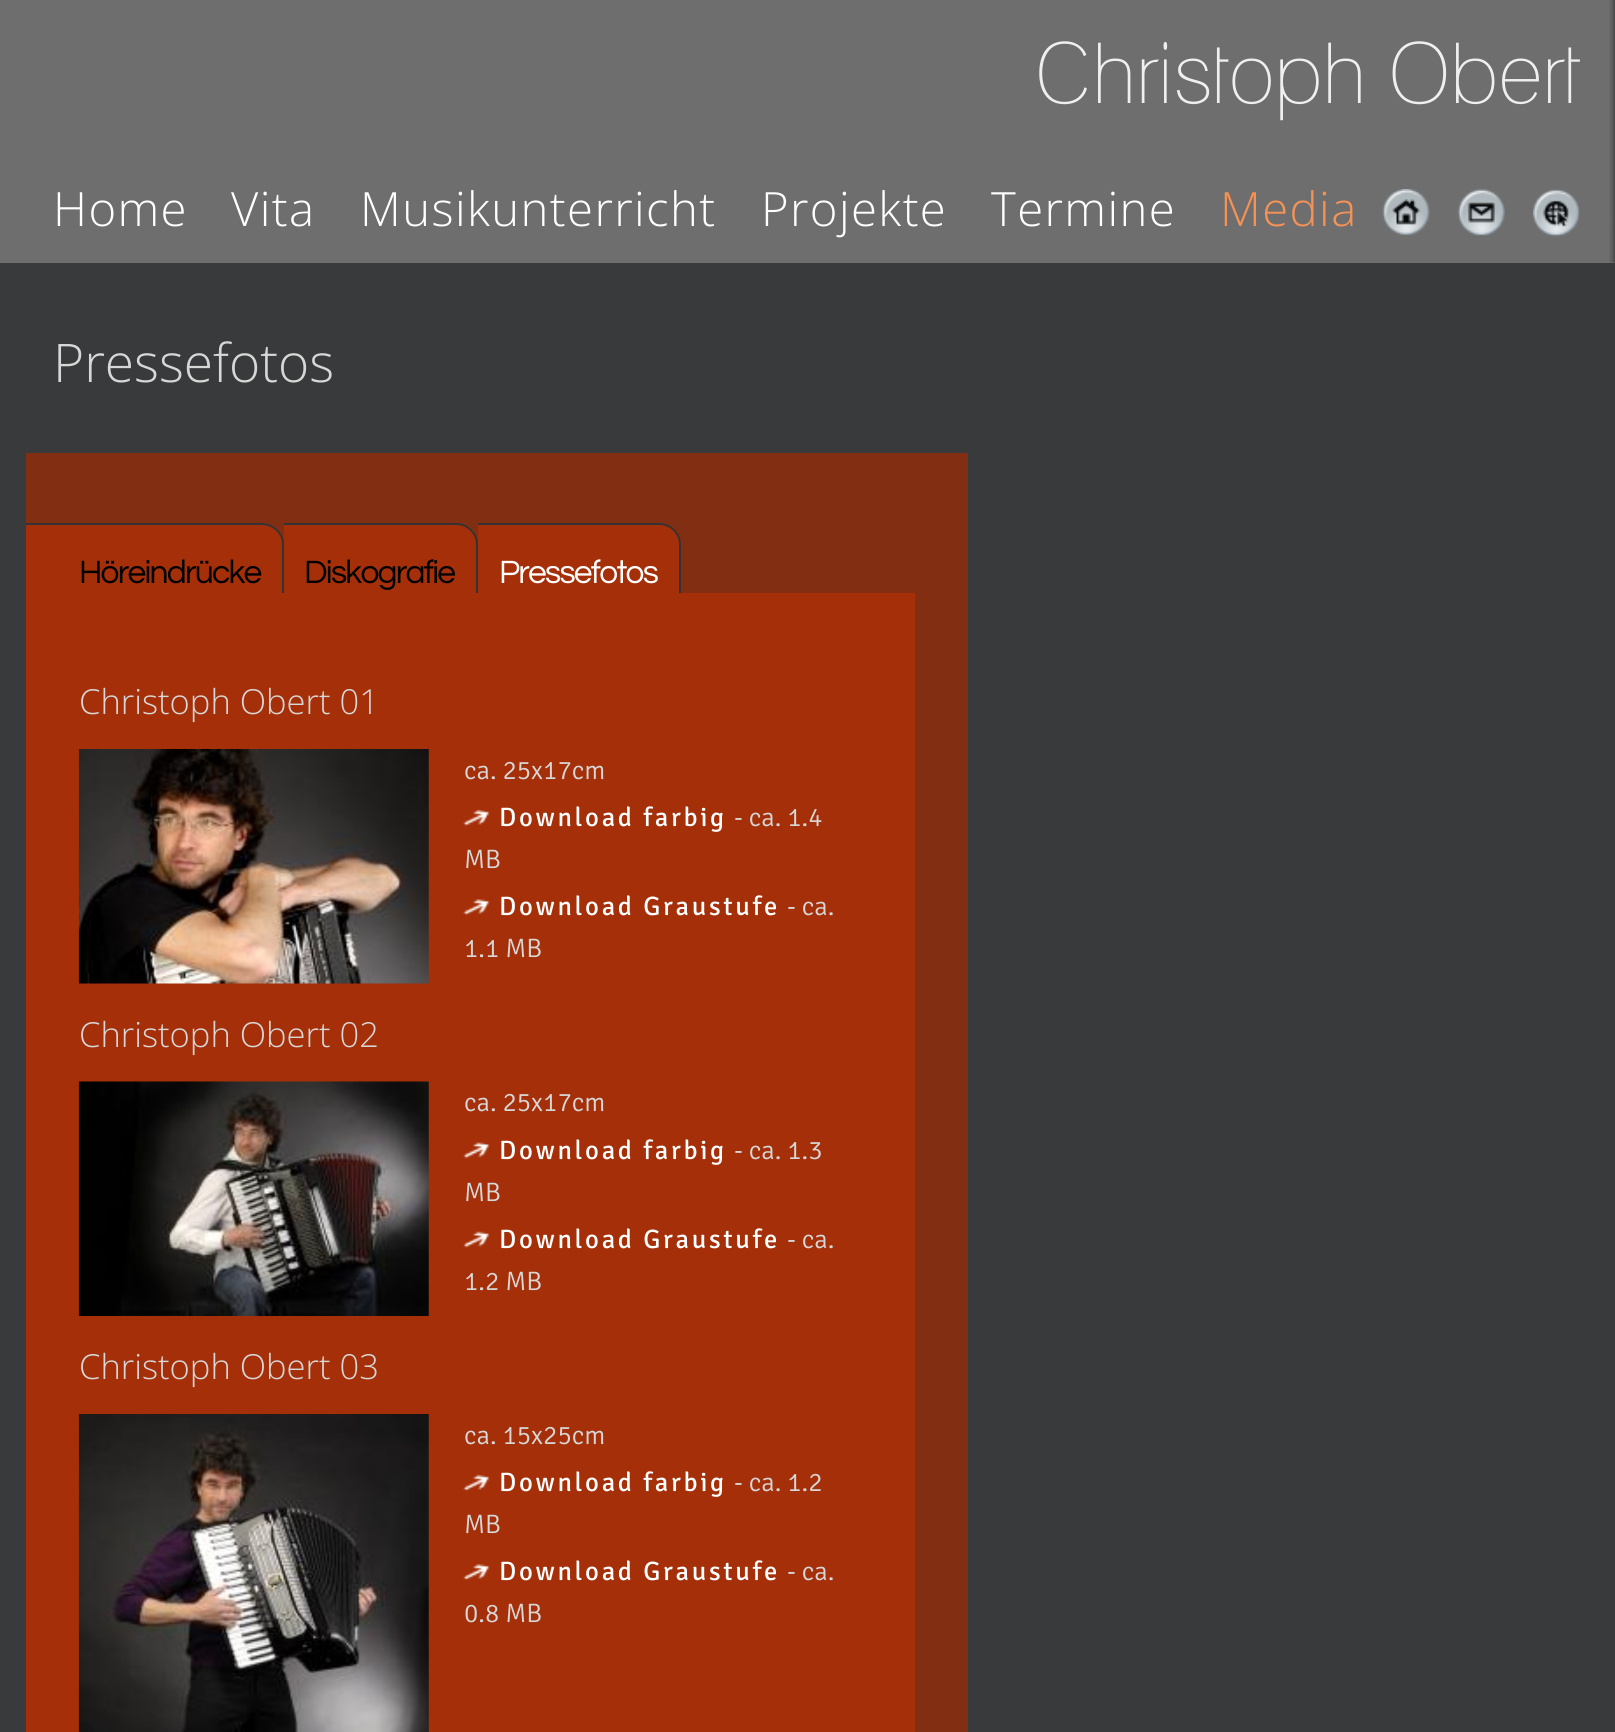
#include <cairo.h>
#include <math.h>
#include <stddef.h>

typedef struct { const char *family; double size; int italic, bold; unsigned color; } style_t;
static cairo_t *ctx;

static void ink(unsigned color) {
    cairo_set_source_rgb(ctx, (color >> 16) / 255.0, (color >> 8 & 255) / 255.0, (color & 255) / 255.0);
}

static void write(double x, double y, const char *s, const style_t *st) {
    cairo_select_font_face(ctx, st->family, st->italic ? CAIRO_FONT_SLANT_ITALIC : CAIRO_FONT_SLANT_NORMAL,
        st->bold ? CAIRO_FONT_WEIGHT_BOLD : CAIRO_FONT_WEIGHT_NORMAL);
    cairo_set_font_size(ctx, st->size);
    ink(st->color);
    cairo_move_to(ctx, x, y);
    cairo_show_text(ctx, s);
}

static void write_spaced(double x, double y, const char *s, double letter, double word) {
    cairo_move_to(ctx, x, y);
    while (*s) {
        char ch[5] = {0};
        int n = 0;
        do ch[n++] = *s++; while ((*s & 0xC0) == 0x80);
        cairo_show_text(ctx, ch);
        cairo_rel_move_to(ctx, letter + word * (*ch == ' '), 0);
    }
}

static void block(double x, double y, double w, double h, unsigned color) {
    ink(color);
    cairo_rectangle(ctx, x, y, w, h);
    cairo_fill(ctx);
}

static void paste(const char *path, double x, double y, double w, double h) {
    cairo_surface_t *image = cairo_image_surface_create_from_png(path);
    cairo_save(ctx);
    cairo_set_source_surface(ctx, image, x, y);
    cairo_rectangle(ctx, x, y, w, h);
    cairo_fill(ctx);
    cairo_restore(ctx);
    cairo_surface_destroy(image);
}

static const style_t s1 = {"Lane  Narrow", 84, 0, 0, 0xefefef};
static const style_t s2 = {"Open Sans Light", 53.25, 0, 0, 0xd7d7d7};
static const style_t s3 = {"Open Sans Light", 34.5, 0, 0, 0xd7d7d7};
static const style_t s4 = {"Signika Light", 26.6, 0, 0, 0xd7d7d7};

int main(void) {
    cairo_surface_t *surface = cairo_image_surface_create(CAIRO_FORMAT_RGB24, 1615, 1732);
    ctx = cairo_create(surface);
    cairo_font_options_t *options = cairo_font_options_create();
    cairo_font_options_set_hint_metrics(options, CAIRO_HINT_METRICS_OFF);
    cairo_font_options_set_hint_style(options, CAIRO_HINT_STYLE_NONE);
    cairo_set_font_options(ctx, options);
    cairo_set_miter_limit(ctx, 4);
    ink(0x6e6e6e);
    cairo_paint(ctx);
    write(1035, 103, "Christoph Obert", &s1);
    paste("pic1.png", 1609, 0, 6, 263);
    cairo_select_font_face(ctx, "Open Sans Light", CAIRO_FONT_SLANT_NORMAL, CAIRO_FONT_WEIGHT_NORMAL);
    cairo_set_font_size(ctx, 47.25);
    ink(0xffffff);
    write_spaced(53, 226, "Home", 1.4, 0);
    write_spaced(231, 226, "Vita", 1.4, 0);
    write_spaced(360, 226, "Musikunterricht", 1.4, 0);
    write_spaced(761, 226, "Projekte", 1.4, 0);
    write_spaced(991, 226, "Termine", 1.4, 0);
    ink(0xf69255);
    write_spaced(1220, 226, "Media", 1.4, 0);
    paste("pic2.png", 1382, 189, 48, 46);
    paste("pic3.png", 1457, 189, 48, 47);
    paste("pic4.png", 1533, 189, 47, 48);
    block(0, 263, 1615, 1469, 0x393a3b);
    write(53, 382, "Pressefotos", &s2);
    block(26, 453, 942, 1279, 0x812e13);
    ink(0xa42f08);
    cairo_new_path(ctx);
    cairo_move_to(ctx, 26, 523);
    cairo_line_to(ctx, 263, 523);
    cairo_curve_to(ctx, 274.5, 523, 284, 532.5, 284, 544);
    cairo_line_to(ctx, 284, 611);
    cairo_line_to(ctx, 26, 611);
    cairo_close_path(ctx);
    cairo_fill(ctx);
    ink(0x333333);
    cairo_set_fill_rule(ctx, CAIRO_FILL_RULE_EVEN_ODD);
    cairo_new_path(ctx);
    cairo_move_to(ctx, 26, 523);
    cairo_line_to(ctx, 262, 523);
    cairo_curve_to(ctx, 274, 523, 284, 533, 284, 544);
    cairo_line_to(ctx, 284, 611);
    cairo_line_to(ctx, 26, 611);
    cairo_close_path(ctx);
    cairo_move_to(ctx, 26, 525);
    cairo_line_to(ctx, 262, 525);
    cairo_curve_to(ctx, 273, 525, 282, 534, 282, 544);
    cairo_line_to(ctx, 282, 611);
    cairo_line_to(ctx, 26, 611);
    cairo_close_path(ctx);
    cairo_fill(ctx);
    cairo_select_font_face(ctx, "Questrial", CAIRO_FONT_SLANT_NORMAL, CAIRO_FONT_WEIGHT_NORMAL);
    cairo_set_font_size(ctx, 33.5);
    ink(0x000000);
    write_spaced(79, 583, "Höreindrücke", -1.75, 0);
    ink(0xa42f08);
    cairo_new_path(ctx);
    cairo_move_to(ctx, 284, 523);
    cairo_line_to(ctx, 457, 523);
    cairo_curve_to(ctx, 468.5, 523, 478, 532.5, 478, 544);
    cairo_line_to(ctx, 478, 611);
    cairo_line_to(ctx, 284, 611);
    cairo_close_path(ctx);
    cairo_fill(ctx);
    ink(0x333333);
    cairo_new_path(ctx);
    cairo_move_to(ctx, 284, 523);
    cairo_line_to(ctx, 457, 523);
    cairo_curve_to(ctx, 468, 523, 478, 533, 478, 544);
    cairo_line_to(ctx, 478, 611);
    cairo_line_to(ctx, 284, 611);
    cairo_close_path(ctx);
    cairo_move_to(ctx, 284, 525);
    cairo_line_to(ctx, 457, 525);
    cairo_curve_to(ctx, 467, 525, 476, 534, 476, 544);
    cairo_line_to(ctx, 476, 611);
    cairo_line_to(ctx, 284, 611);
    cairo_close_path(ctx);
    cairo_fill(ctx);
    ink(0x000000);
    write_spaced(304, 583, "Diskografie", -1.75, 0);
    ink(0xa42f08);
    cairo_new_path(ctx);
    cairo_move_to(ctx, 478, 523);
    cairo_line_to(ctx, 660, 523);
    cairo_curve_to(ctx, 671.5, 523, 681, 532.5, 681, 544);
    cairo_line_to(ctx, 681, 611);
    cairo_line_to(ctx, 478, 611);
    cairo_close_path(ctx);
    cairo_fill(ctx);
    ink(0x333333);
    cairo_new_path(ctx);
    cairo_move_to(ctx, 478, 523);
    cairo_line_to(ctx, 660, 523);
    cairo_curve_to(ctx, 671, 523, 681, 533, 681, 544);
    cairo_line_to(ctx, 681, 611);
    cairo_line_to(ctx, 478, 611);
    cairo_close_path(ctx);
    cairo_move_to(ctx, 478, 525);
    cairo_line_to(ctx, 660, 525);
    cairo_curve_to(ctx, 670, 525, 679, 534, 679, 544);
    cairo_line_to(ctx, 679, 611);
    cairo_line_to(ctx, 478, 611);
    cairo_close_path(ctx);
    cairo_fill(ctx);
    ink(0xffffff);
    write_spaced(499, 583, "Pressefotos", -1.75, 0);
    block(26, 593, 889, 1139, 0xa42f08);
    write(79, 714, "Christoph Obert 01", &s3);
    paste("pic5.png", 78, 749, 351, 235);
    write(464, 779, "ca. 25x17cm", &s4);
    paste("pic6.png", 463, 809, 27, 17);
    cairo_select_font_face(ctx, "Signika", CAIRO_FONT_SLANT_NORMAL, CAIRO_FONT_WEIGHT_NORMAL);
    ink(0xffffff);
    write_spaced(499, 826, "Download farbig", 2.7, 0);
    write(734, 826, "- ca. 1.4", &s4);
    write(464, 868, "MB", &s4);
    paste("pic7.png", 463, 899, 27, 17);
    cairo_select_font_face(ctx, "Signika", CAIRO_FONT_SLANT_NORMAL, CAIRO_FONT_WEIGHT_NORMAL);
    ink(0xffffff);
    write_spaced(499, 915, "Download Graustufe", 2.7, 0);
    write(787, 915, "- ca.", &s4);
    write(464, 957, "1.1 MB", &s4);
    write(79, 1047, "Christoph Obert 02", &s3);
    paste("pic8.png", 78, 1081, 351, 235);
    write(464, 1111, "ca. 25x17cm", &s4);
    paste("pic9.png", 463, 1142, 27, 17);
    cairo_select_font_face(ctx, "Signika", CAIRO_FONT_SLANT_NORMAL, CAIRO_FONT_WEIGHT_NORMAL);
    ink(0xffffff);
    write_spaced(499, 1159, "Download farbig", 2.7, 0);
    write(734, 1159, "- ca. 1.3", &s4);
    write(464, 1201, "MB", &s4);
    paste("pic10.png", 463, 1231, 27, 17);
    cairo_select_font_face(ctx, "Signika", CAIRO_FONT_SLANT_NORMAL, CAIRO_FONT_WEIGHT_NORMAL);
    ink(0xffffff);
    write_spaced(499, 1248, "Download Graustufe", 2.7, 0);
    write(787, 1248, "- ca.", &s4);
    write(464, 1290, "1.2 MB", &s4);
    write(79, 1379, "Christoph Obert 03", &s3);
    paste("pic11.png", 78, 1414, 351, 318);
    write(464, 1444, "ca. 15x25cm", &s4);
    paste("pic6.png", 463, 1474, 27, 17);
    cairo_select_font_face(ctx, "Signika", CAIRO_FONT_SLANT_NORMAL, CAIRO_FONT_WEIGHT_NORMAL);
    ink(0xffffff);
    write_spaced(499, 1491, "Download farbig", 2.7, 0);
    write(734, 1491, "- ca. 1.2", &s4);
    write(464, 1533, "MB", &s4);
    paste("pic7.png", 463, 1564, 27, 17);
    cairo_select_font_face(ctx, "Signika", CAIRO_FONT_SLANT_NORMAL, CAIRO_FONT_WEIGHT_NORMAL);
    ink(0xffffff);
    write_spaced(499, 1580, "Download Graustufe", 2.7, 0);
    write(787, 1580, "- ca.", &s4);
    write(464, 1622, "0.8 MB", &s4);
    cairo_surface_write_to_png(surface, "screenshot.png");
    cairo_font_options_destroy(options);
    cairo_destroy(ctx);
    cairo_surface_destroy(surface);
    return 0;
}
